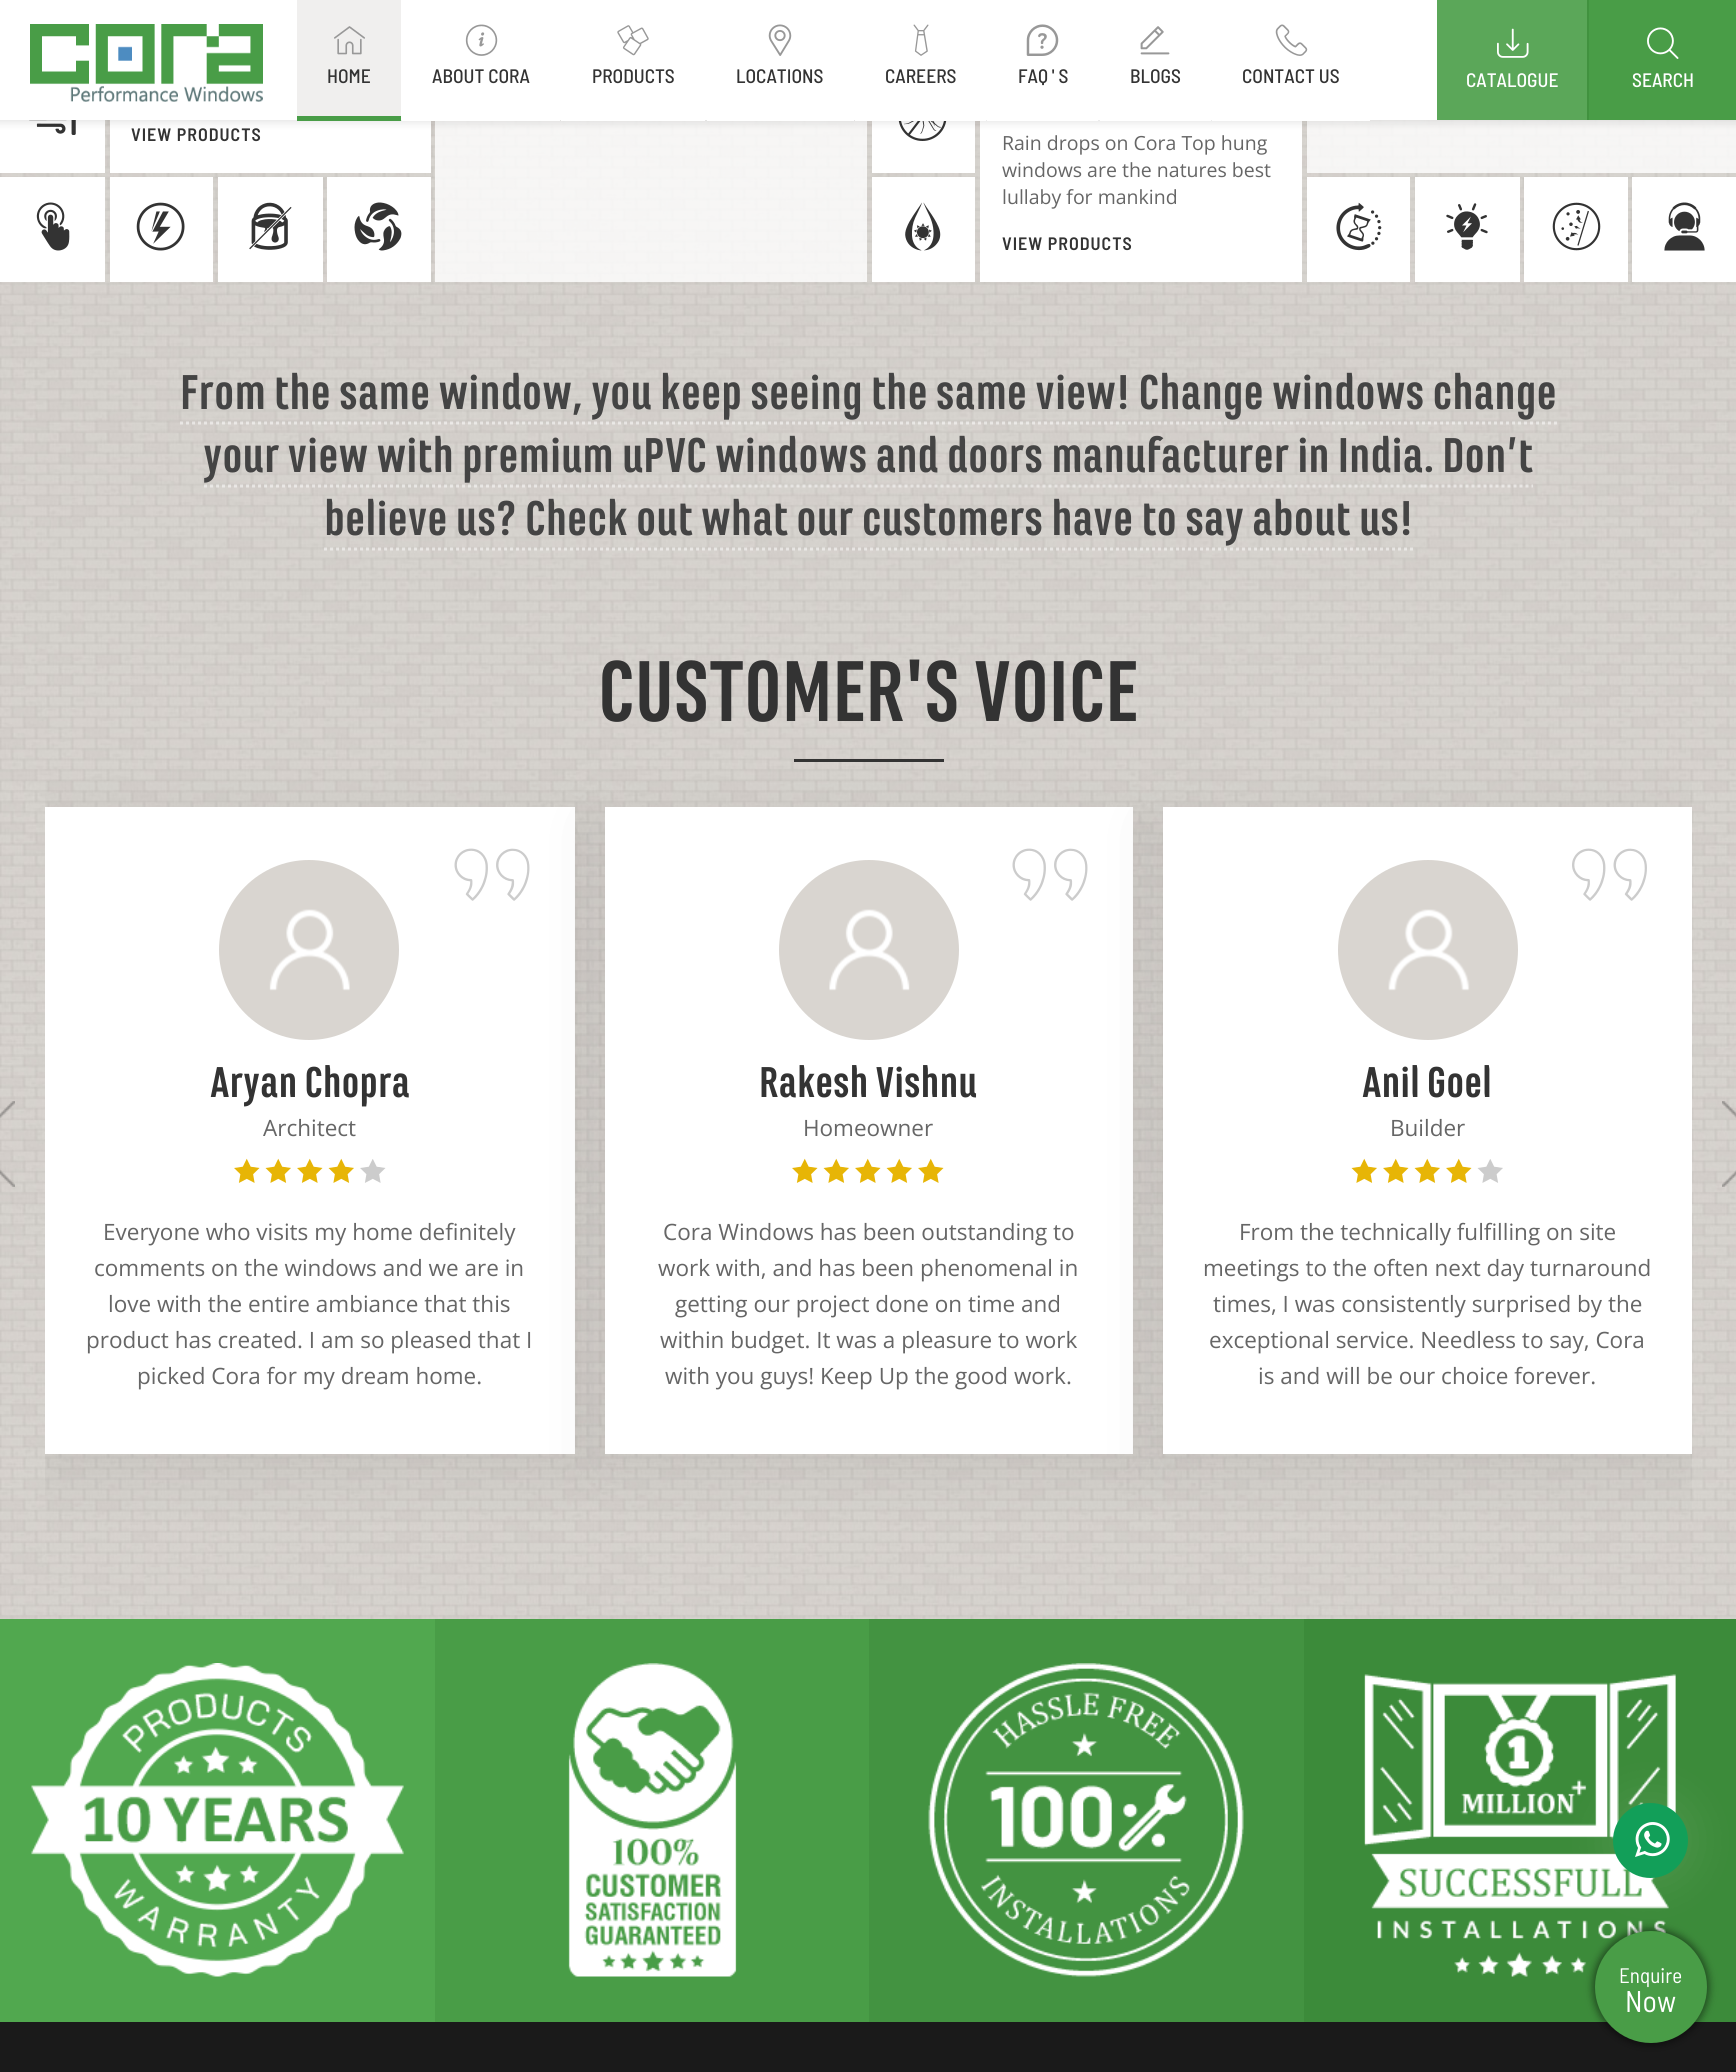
#include <cairo.h>
#include <math.h>
#include <stddef.h>

typedef struct { const char *family; double size; int italic, bold; unsigned color; } style_t;
static cairo_t *ctx;

static void ink(unsigned color) {
    cairo_set_source_rgb(ctx, (color >> 16) / 255.0, (color >> 8 & 255) / 255.0, (color & 255) / 255.0);
}

static void write(double x, double y, const char *s, const style_t *st) {
    cairo_select_font_face(ctx, st->family, st->italic ? CAIRO_FONT_SLANT_ITALIC : CAIRO_FONT_SLANT_NORMAL,
        st->bold ? CAIRO_FONT_WEIGHT_BOLD : CAIRO_FONT_WEIGHT_NORMAL);
    cairo_set_font_size(ctx, st->size);
    ink(st->color);
    cairo_move_to(ctx, x, y);
    cairo_show_text(ctx, s);
}

static void write_spaced(double x, double y, const char *s, double letter, double word) {
    cairo_move_to(ctx, x, y);
    while (*s) {
        char ch[5] = {0};
        int n = 0;
        do ch[n++] = *s++; while ((*s & 0xC0) == 0x80);
        cairo_show_text(ctx, ch);
        cairo_rel_move_to(ctx, letter + word * (*ch == ' '), 0);
    }
}

static void block(double x, double y, double w, double h, unsigned color) {
    ink(color);
    cairo_rectangle(ctx, x, y, w, h);
    cairo_fill(ctx);
}

static void round_path(double x, double y, double w, double h, double r) {
    cairo_new_sub_path(ctx);
    cairo_arc(ctx, x + w - r, y + h - r, r, 0, M_PI / 2);
    cairo_arc(ctx, x + r, y + h - r, r, M_PI / 2, M_PI);
    cairo_arc(ctx, x + r, y + r, r, M_PI, 1.5 * M_PI);
    cairo_arc(ctx, x + w - r, y + r, r, 1.5 * M_PI, 2 * M_PI);
    cairo_close_path(ctx);
}

static void blur_box(double x, double y, double w, double h, double r, double blur, double alpha) {
    cairo_push_group_with_content(ctx, CAIRO_CONTENT_ALPHA);
    cairo_set_operator(ctx, CAIRO_OPERATOR_SOURCE);
    for (int i = 15; i >= -15 && fmin(w, h) + blur * i / 3 > 0; i -= 2) {
        double e = blur * i / 6;
        cairo_set_source_rgba(ctx, 0, 0, 0, alpha * erfc((i - 1) / 8.5) / 2);
        round_path(x - e, y - e, w + 2 * e, h + 2 * e, fmax(0, fmin(r + e + blur * .6, fmin(w, h) / 2 + e)));
        cairo_fill(ctx);
    }
    cairo_pattern_t *soft = cairo_pop_group(ctx);
    cairo_mask(ctx, soft);
    cairo_pattern_destroy(soft);
}

static void paste(const char *path, double x, double y, double w, double h) {
    cairo_surface_t *image = cairo_image_surface_create_from_png(path);
    cairo_save(ctx);
    cairo_set_source_surface(ctx, image, x, y);
    cairo_rectangle(ctx, x, y, w, h);
    cairo_fill(ctx);
    cairo_restore(ctx);
    cairo_surface_destroy(image);
}

static const style_t s1 = {"Barlow Semi Condensed Medium", 19.5, 0, 0, 0x333333};
static const style_t s2 = {"Barlow Semi Condensed Medium", 19.5, 0, 0, 0xffffff};
static const style_t s3 = {"Open Sans", 19.5, 0, 0, 0x666666};
static const style_t s4 = {"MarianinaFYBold", 51, 0, 1, 0x444444};
static const style_t s5 = {"MarianinaFYBold", 90, 0, 1, 0x333333};
static const style_t s6 = {"MarianinaFYBold", 45, 0, 1, 0x333333};
static const style_t s7 = {"Open Sans", 22.5, 0, 0, 0x666666};
static const style_t s8 = {"Barlow Semi Condensed", 21, 0, 0, 0xffffff};
static const style_t s9 = {"Barlow Semi Condensed", 30, 0, 0, 0xffffff};

int main(void) {
    cairo_surface_t *surface = cairo_image_surface_create(CAIRO_FORMAT_RGB24, 1736, 2072);
    ctx = cairo_create(surface);
    cairo_font_options_t *options = cairo_font_options_create();
    cairo_font_options_set_hint_metrics(options, CAIRO_HINT_METRICS_OFF);
    cairo_font_options_set_hint_style(options, CAIRO_HINT_STYLE_NONE);
    cairo_set_font_options(ctx, options);
    cairo_set_miter_limit(ctx, 4);
    ink(0xffffff);
    cairo_paint(ctx);
    paste("pic1.png", 0, 120, 1736, 1499);
    block(0, 120, 105, 53, 0xffffff);
    paste("pic13.png", 29, 120, 47, 15);
    block(110, 120, 321, 53, 0xffffff);
    cairo_set_source_rgba(ctx, 1, 1, 1, 0.8);
    cairo_rectangle(ctx, 435, 120, 432, 162);
    cairo_fill(ctx);
    block(872, 121, 103, 52, 0xffffff);
    paste("pic14.png", 898, 121, 49, 20);
    block(980, 120, 322, 162, 0xffffff);
    cairo_set_source_rgba(ctx, 1, 1, 1, 0.8);
    cairo_rectangle(ctx, 1307, 120, 429, 53);
    cairo_fill(ctx);
    ink(0x000000);
    blur_box(-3, -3, 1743, 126, 0, 4, 0.1);
    block(0, 0, 1437, 120, 0xffffff);
    paste("pic2.png", 30, 24, 233, 78);
    block(297, 0, 104, 116, 0xf0efee);
    block(297, 116, 104, 5, 0x499d47);
    paste("pic3.png", 334, 26, 31, 29);
    write(327, 83, "HOME", &s1);
    block(402, 120, 158, 1, 0xffffff);
    paste("pic4.png", 465, 24, 33, 32);
    write(432, 83, "ABOUT CORA", &s1);
    block(561, 120, 144, 1, 0xffffff);
    paste("pic5.png", 617, 25, 32, 31);
    write(592, 83, "PRODUCTS", &s1);
    block(707, 120, 147, 1, 0xffffff);
    paste("pic6.png", 768, 24, 24, 32);
    write(736, 83, "LOCATIONS", &s1);
    block(855, 120, 131, 1, 0xffffff);
    paste("pic7.png", 913, 24, 16, 32);
    write(885, 83, "CAREERS", &s1);
    block(987, 120, 111, 1, 0xffffff);
    paste("pic8.png", 1026, 24, 33, 32);
    write(1018, 83, "FAQ ' S", &s1);
    block(1100, 120, 111, 1, 0xffffff);
    paste("pic9.png", 1140, 26, 30, 29);
    write(1130, 83, "BLOGS", &s1);
    block(1212, 120, 158, 1, 0xffffff);
    paste("pic10.png", 1275, 24, 33, 32);
    write(1242, 83, "CONTACT US", &s1);
    block(1437, 0, 150, 120, 0x5ba759);
    paste("pic11.png", 1497, 28, 32, 30);
    write(1466, 87, "CATALOGUE", &s2);
    block(1589, 0, 147, 120, 0x499d47);
    block(1587, 0, 2, 120, 0x41923f);
    paste("pic12.png", 1647, 27, 32, 32);
    write(1632, 87, "SEARCH", &s2);
    cairo_select_font_face(ctx, "Barlow Semi Condensed SemiBold", CAIRO_FONT_SLANT_NORMAL, CAIRO_FONT_WEIGHT_NORMAL);
    cairo_set_font_size(ctx, 18);
    ink(0x333333);
    write_spaced(131, 141, "VIEW PRODUCTS", 1, 0);
    write(1002, 150, "Rain drops on Cora Top hung", &s3);
    write(1002, 177, "windows are the natures best", &s3);
    write(1002, 204, "lullaby for mankind", &s3);
    cairo_select_font_face(ctx, "Barlow Semi Condensed SemiBold", CAIRO_FONT_SLANT_NORMAL, CAIRO_FONT_WEIGHT_NORMAL);
    cairo_set_font_size(ctx, 18);
    ink(0x333333);
    write_spaced(1002, 250, "VIEW PRODUCTS", 1, 0);
    block(0, 177, 105, 105, 0xffffff);
    paste("pic15.png", 36, 202, 34, 49);
    block(110, 177, 103, 105, 0xffffff);
    paste("pic16.png", 136, 202, 49, 49);
    block(218, 177, 105, 105, 0xffffff);
    paste("pic17.png", 249, 202, 43, 48);
    block(327, 177, 104, 105, 0xffffff);
    paste("pic18.png", 354, 202, 48, 49);
    block(872, 177, 103, 105, 0xffffff);
    paste("pic19.png", 905, 202, 36, 49);
    block(1307, 177, 103, 105, 0xffffff);
    paste("pic20.png", 1336, 202, 46, 49);
    block(1415, 177, 105, 105, 0xffffff);
    paste("pic21.png", 1446, 203, 42, 47);
    block(1524, 177, 104, 105, 0xffffff);
    paste("pic22.png", 1552, 202, 49, 49);
    block(1632, 177, 104, 105, 0xffffff);
    paste("pic23.png", 1664, 202, 41, 49);
    write(180, 409, "From the same window, you keep seeing the same view! Change windows change", &s4);
    cairo_new_path(ctx);
    cairo_move_to(ctx, 180, 423);
    cairo_line_to(ctx, 1557, 423);
    cairo_set_source_rgba(ctx, 1, 1, 1, 0.5);
    cairo_set_line_width(ctx, 3);
    cairo_set_dash(ctx, (double[]){3, 3}, 2, 0);
    cairo_stroke(ctx);
    write(203, 472, "your view with premium uPVC windows and doors manufacturer in India. Don’t", &s4);
    cairo_new_path(ctx);
    cairo_move_to(ctx, 204, 486);
    cairo_line_to(ctx, 622.5, 486);
    cairo_set_source_rgba(ctx, 1, 1, 1, 0.5);
    cairo_stroke(ctx);
    cairo_new_path(ctx);
    cairo_move_to(ctx, 622.5, 486);
    cairo_line_to(ctx, 1423.5, 486);
    cairo_stroke(ctx);
    cairo_new_path(ctx);
    cairo_move_to(ctx, 1423.5, 486);
    cairo_line_to(ctx, 1533, 486);
    cairo_stroke(ctx);
    write(324, 535, "believe us? Check out what our customers have to say about us!", &s4);
    cairo_new_path(ctx);
    cairo_move_to(ctx, 324, 549);
    cairo_line_to(ctx, 1413, 549);
    cairo_set_source_rgba(ctx, 1, 1, 1, 0.5);
    cairo_stroke(ctx);
    write(598, 721, "CUSTOMER'S VOICE", &s5);
    block(794, 759, 150, 3, 0x333333);
    cairo_save(ctx);
    cairo_rectangle(ctx, 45, 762, 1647, 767);
    cairo_clip(ctx);
    ink(0x000000);
    blur_box(45, 822, 530, 647, 0, 37.5, 0.08);
    cairo_restore(ctx);
    block(45, 807, 530, 647, 0xffffff);
    paste("pic24.png", 454, 848, 76, 53);
    ink(0xd9d5d0);
    cairo_arc(ctx, 309, 950, 90, 0, 2 * M_PI);
    cairo_fill(ctx);
    paste("pic25.png", 269, 909, 81, 82);
    write(210, 1097, "Aryan Chopra", &s6);
    write(263, 1136, "Architect", &s7);
    paste("pic26.png", 234, 1158, 26, 25);
    paste("pic27.png", 265, 1158, 26, 25);
    paste("pic26.png", 297, 1158, 26, 25);
    paste("pic27.png", 328, 1158, 26, 25);
    paste("pic28.png", 360, 1159, 26, 24);
    write(103, 1240, "Everyone who visits my home definitely", &s7);
    write(94, 1276, "comments on the windows and we are in", &s7);
    write(108, 1312, "love with the entire ambiance that this", &s7);
    write(86, 1348, "product has created. I am so pleased that I", &s7);
    write(137, 1384, "picked Cora for my dream home.", &s7);
    ink(0x000000);
    blur_box(605, 822, 528, 647, 0, 37.5, 0.08);
    block(605, 807, 528, 647, 0xffffff);
    paste("pic24.png", 1012, 848, 76, 53);
    ink(0xd9d5d0);
    cairo_arc(ctx, 869, 950, 90, 0, 2 * M_PI);
    cairo_fill(ctx);
    paste("pic29.png", 829, 909, 81, 82);
    write(759, 1097, "Rakesh Vishnu", &s6);
    write(803, 1136, "Homeowner", &s7);
    paste("pic26.png", 792, 1158, 26, 25);
    paste("pic27.png", 823, 1158, 26, 25);
    paste("pic26.png", 855, 1158, 26, 25);
    paste("pic27.png", 886, 1158, 26, 25);
    paste("pic26.png", 918, 1158, 26, 25);
    write(663, 1240, "Cora Windows has been outstanding to", &s7);
    write(658, 1276, "work with, and has been phenomenal in", &s7);
    write(675, 1312, "getting our project done on time and", &s7);
    write(660, 1348, "within budget. It was a pleasure to work", &s7);
    write(665, 1384, "with you guys! Keep Up the good work.", &s7);
    cairo_save(ctx);
    cairo_rectangle(ctx, 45, 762, 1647, 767);
    cairo_clip(ctx);
    ink(0x000000);
    blur_box(1163, 822, 529, 647, 0, 37.5, 0.08);
    cairo_restore(ctx);
    block(1163, 807, 529, 647, 0xffffff);
    paste("pic30.png", 1572, 848, 75, 53);
    ink(0xd9d5d0);
    cairo_arc(ctx, 1428, 950, 90, 0, 2 * M_PI);
    cairo_fill(ctx);
    paste("pic31.png", 1388, 909, 82, 82);
    write(1362, 1097, "Anil Goel", &s6);
    write(1390, 1136, "Builder", &s7);
    paste("pic27.png", 1351, 1158, 26, 25);
    paste("pic26.png", 1383, 1158, 26, 25);
    paste("pic27.png", 1414, 1158, 26, 25);
    paste("pic26.png", 1446, 1158, 26, 25);
    paste("pic32.png", 1477, 1159, 26, 24);
    write(1239, 1240, "From the technically fulfilling on site", &s7);
    write(1203, 1276, "meetings to the often next day turnaround", &s7);
    write(1213, 1312, "times, I was consistently surprised by the", &s7);
    write(1209, 1348, "exceptional service. Needless to say, Cora", &s7);
    write(1258, 1384, "is and will be our choice forever.", &s7);
    paste("pic33.png", 0, 1101, 15, 86);
    paste("pic34.png", 1722, 1101, 14, 86);
    block(0, 1619, 435, 403, 0x51a84f);
    paste("pic35.png", 31, 1663, 373, 314);
    block(435, 1619, 434, 403, 0x499d47);
    paste("pic36.png", 568, 1663, 169, 314);
    block(869, 1619, 435, 403, 0x439341);
    paste("pic37.png", 928, 1663, 316, 314);
    block(1304, 1619, 432, 403, 0x3c8b3a);
    paste("pic38.png", 1364, 1674, 312, 303);
    block(0, 2022, 1736, 50, 0x1a1a1a);
    ink(0x000000);
    blur_box(1593, 1929, 116, 116, 58, 4, 0.5);
    ink(0x499d47);
    cairo_arc(ctx, 1651, 1987, 56, 0, 2 * M_PI);
    cairo_fill(ctx);
    ink(0xffffff);
    blur_box(1613, 1803, 75, 75, 37.5, 22.5, 0.1);
    ink(0x129f59);
    cairo_arc(ctx, 1650.5, 1840.5, 37.5, 0, 2 * M_PI);
    cairo_fill(ctx);
    paste("pic39.png", 1635, 1822, 35, 35);
    write(1619, 1983, "Enquire", &s8);
    write(1625, 2012, "Now", &s9);
    cairo_surface_write_to_png(surface, "screenshot.png");
    cairo_font_options_destroy(options);
    cairo_destroy(ctx);
    cairo_surface_destroy(surface);
    return 0;
}
